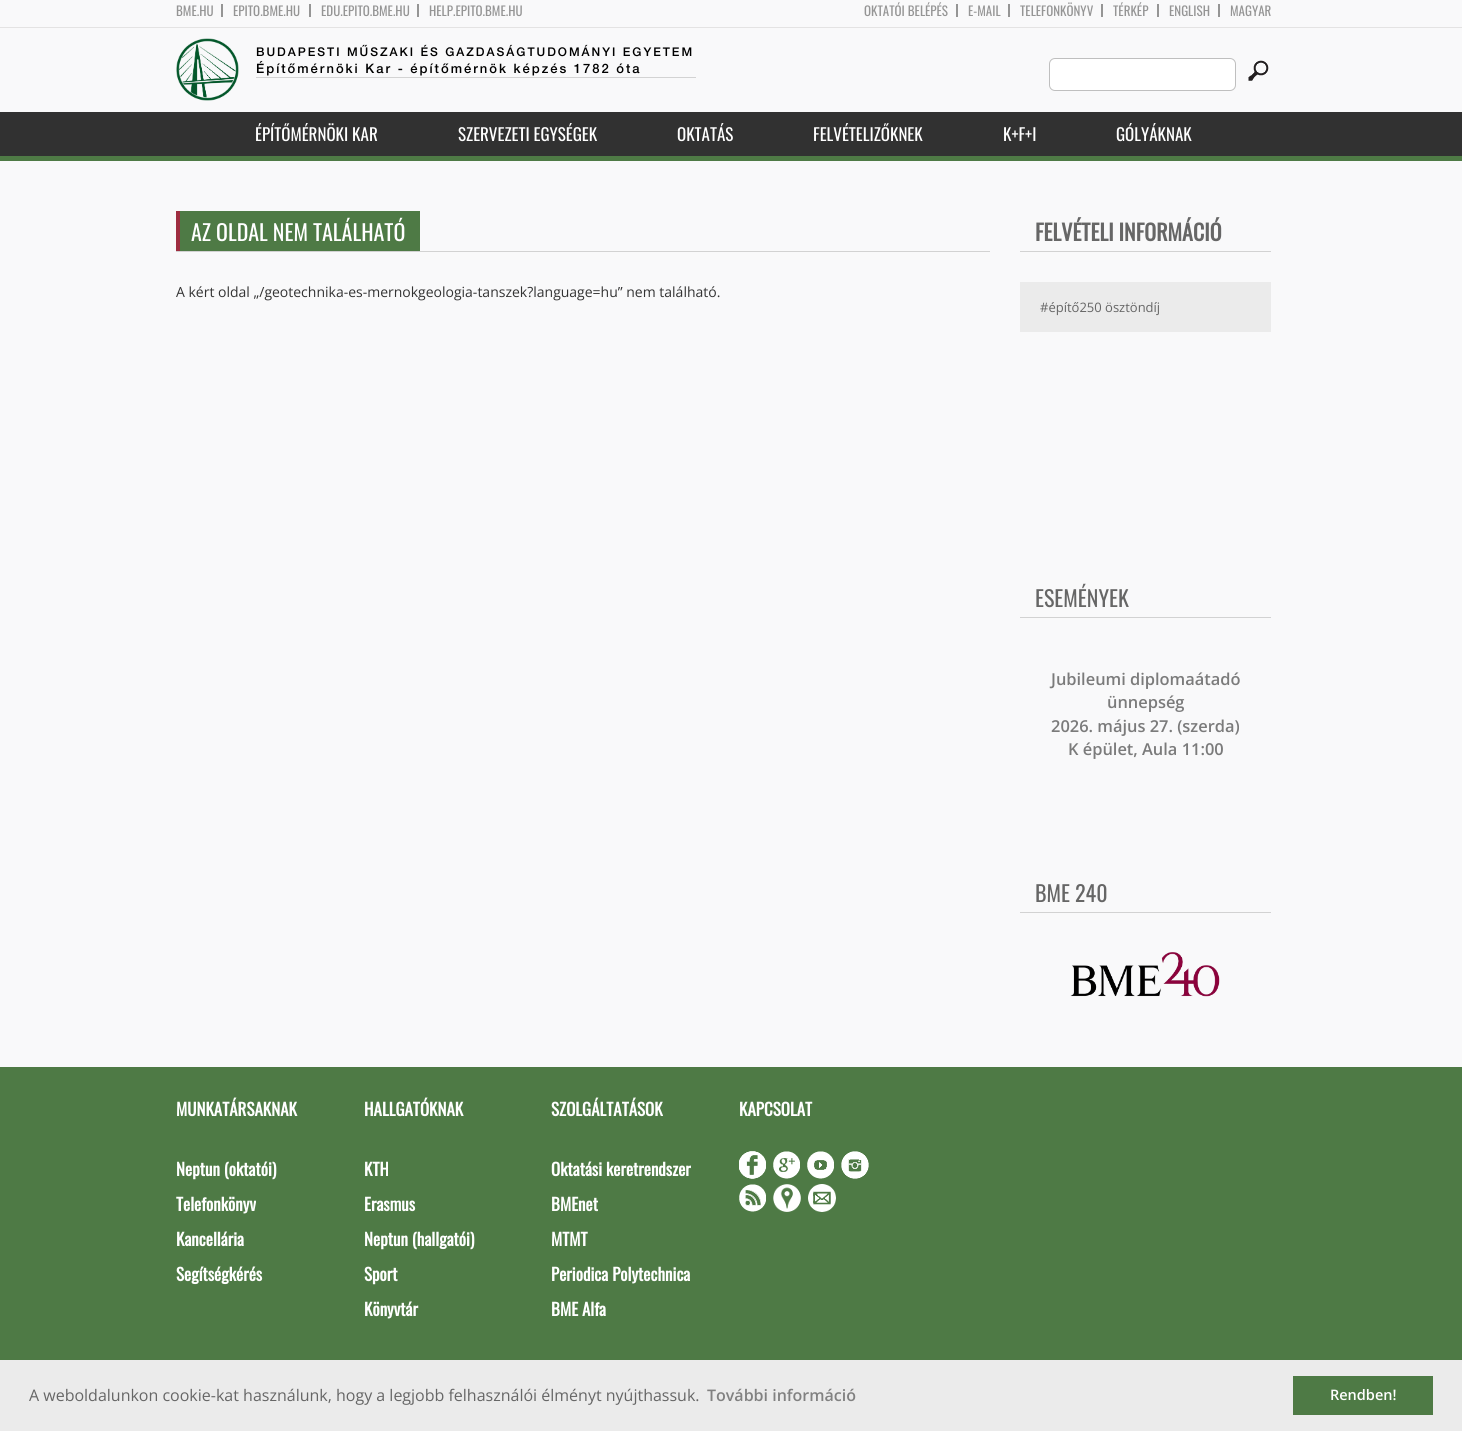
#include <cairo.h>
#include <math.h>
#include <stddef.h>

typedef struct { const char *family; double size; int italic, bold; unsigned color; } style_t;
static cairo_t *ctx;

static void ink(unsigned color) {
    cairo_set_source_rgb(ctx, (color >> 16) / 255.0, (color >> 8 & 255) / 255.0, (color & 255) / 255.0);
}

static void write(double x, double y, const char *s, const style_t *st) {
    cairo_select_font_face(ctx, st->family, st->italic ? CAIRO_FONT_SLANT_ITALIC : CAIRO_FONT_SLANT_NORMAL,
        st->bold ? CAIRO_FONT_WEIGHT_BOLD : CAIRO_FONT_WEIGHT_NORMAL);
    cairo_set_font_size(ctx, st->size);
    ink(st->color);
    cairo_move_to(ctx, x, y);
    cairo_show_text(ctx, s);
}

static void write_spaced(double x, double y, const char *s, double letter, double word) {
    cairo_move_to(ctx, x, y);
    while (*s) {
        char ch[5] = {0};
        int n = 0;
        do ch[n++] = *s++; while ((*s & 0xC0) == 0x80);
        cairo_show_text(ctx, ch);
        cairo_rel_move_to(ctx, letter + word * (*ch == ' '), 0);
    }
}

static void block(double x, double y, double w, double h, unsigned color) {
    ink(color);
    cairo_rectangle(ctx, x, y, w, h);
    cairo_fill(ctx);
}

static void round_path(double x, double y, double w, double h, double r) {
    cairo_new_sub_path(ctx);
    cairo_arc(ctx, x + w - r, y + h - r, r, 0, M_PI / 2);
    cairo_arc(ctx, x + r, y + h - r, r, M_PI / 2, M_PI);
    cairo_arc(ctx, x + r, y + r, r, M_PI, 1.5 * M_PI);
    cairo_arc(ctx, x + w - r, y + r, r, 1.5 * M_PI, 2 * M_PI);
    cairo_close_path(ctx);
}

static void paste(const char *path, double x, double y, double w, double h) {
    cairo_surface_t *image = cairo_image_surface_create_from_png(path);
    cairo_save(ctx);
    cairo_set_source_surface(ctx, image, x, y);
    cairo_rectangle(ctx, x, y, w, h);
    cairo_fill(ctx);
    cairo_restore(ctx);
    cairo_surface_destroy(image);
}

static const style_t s1 = {"Oswald", 13, 0, 0, 0x959595};
static const style_t s2 = {"Oswald", 17, 0, 0, 0xffffff};
static const style_t s3 = {"Oswald", 22, 0, 0, 0xffffff};
static const style_t s4 = {"Open Sans", 14, 0, 0, 0x333333};
static const style_t s5 = {"Oswald", 22, 0, 1, 0x666666};
static const style_t s6 = {"Open Sans", 13, 0, 0, 0x666666};
static const style_t s7 = {"Oswald", 22, 0, 0, 0x666666};
static const style_t s8 = {"Open Sans SemiBold", 16.4, 0, 0, 0x7b7b7b};
static const style_t s9 = {"Oswald", 17, 0, 1, 0xffffff};
static const style_t s10 = {"Open Sans", 16, 0, 0, 0x666666};
static const style_t s11 = {"Open Sans SemiBold", 16, 0, 0, 0x818181};
static const style_t s12 = {"Open Sans SemiBold", 14.5, 0, 0, 0xffffff};

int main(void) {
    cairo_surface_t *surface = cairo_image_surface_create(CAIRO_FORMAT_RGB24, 1462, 1431);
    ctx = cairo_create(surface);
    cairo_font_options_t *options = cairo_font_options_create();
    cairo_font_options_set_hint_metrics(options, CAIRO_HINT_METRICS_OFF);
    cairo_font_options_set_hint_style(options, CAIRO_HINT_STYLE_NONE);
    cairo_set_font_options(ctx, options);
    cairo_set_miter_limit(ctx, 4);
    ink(0xf9f9fa);
    cairo_paint(ctx);
    block(0, 27, 1462, 1, 0xe4e3e3);
    write(176, 16, "BME.HU", &s1);
    block(221, 4, 2, 13, 0x959595);
    write(233, 16, "EPITO.BME.HU", &s1);
    block(309, 4, 2, 13, 0x959595);
    write(321, 16, "EDU.EPITO.BME.HU", &s1);
    block(417, 4, 2, 13, 0x959595);
    write(429, 16, "HELP.EPITO.BME.HU", &s1);
    write(864, 16, "OKTATÓI BELÉPÉS", &s1);
    block(956, 4, 2, 13, 0x959595);
    write(968, 16, "E-MAIL", &s1);
    block(1008, 4, 2, 13, 0x959595);
    write(1020, 16, "TELEFONKÖNYV", &s1);
    block(1101, 4, 2, 13, 0x959595);
    write(1113, 16, "TÉRKÉP", &s1);
    block(1157, 4, 2, 13, 0x959595);
    write(1169, 16, "ENGLISH", &s1);
    block(1218, 4, 2, 13, 0x959595);
    write(1230, 16, "MAGYAR", &s1);
    paste("pic1.png", 176, 38, 63, 63);
    cairo_select_font_face(ctx, "Helvetica Neue Medium", CAIRO_FONT_SLANT_NORMAL, CAIRO_FONT_WEIGHT_NORMAL);
    cairo_set_font_size(ctx, 12);
    ink(0x000000);
    write_spaced(256, 56, "BUDAPESTI MŰSZAKI ÉS GAZDASÁGTUDOMÁNYI EGYETEM", 2, 0);
    cairo_set_font_size(ctx, 13);
    write_spaced(256, 73, "Építőmérnöki Kar - építőmérnök képzés 1782 óta", 2, 0);
    block(256, 77, 440, 1, 0xd3d3d3);
    ink(0xffffff);
    round_path(1049.5, 58.5, 186, 32, 5.5);
    cairo_fill_preserve(ctx);
    ink(0xbfbfbf);
    cairo_set_line_width(ctx, 1);
    cairo_stroke(ctx);
    paste("pic2.png", 1248, 60, 21, 21);
    block(0, 112, 1462, 44, 0x313131);
    block(0, 156, 1462, 5, 0x4e7a45);
    write(255, 141, "ÉPÍTŐMÉRNÖKI KAR", &s2);
    write(458, 141, "SZERVEZETI EGYSÉGEK", &s2);
    write(677, 141, "OKTATÁS", &s2);
    write(813, 141, "FELVÉTELIZŐKNEK", &s2);
    write(1003, 141, "K+F+I", &s2);
    write(1116, 141, "GÓLYÁKNAK", &s2);
    block(176, 251, 814, 1, 0xd2d2d2);
    block(180, 211, 240, 40, 0x4e7a45);
    block(176, 211, 4, 40, 0x9e2d40);
    write(191, 241, "AZ OLDAL NEM TALÁLHATÓ", &s3);
    write(176, 297, "A kért oldal „/geotechnika-es-mernokgeologia-tanszek?language=hu” nem található.", &s4);
    block(1020, 251, 251, 1, 0xd2d2d2);
    write(1035, 241, "FELVÉTELI INFORMÁCIÓ", &s5);
    block(1020, 282, 251, 50, 0xebebeb);
    write(1040, 312, "#építő250 ösztöndíj", &s6);
    block(1020, 617, 251, 1, 0xd2d2d2);
    write(1035, 607, "ESEMÉNYEK", &s7);
    write(1051, 685, "Jubileumi diplomaátadó", &s8);
    write(1107, 708, "ünnepség", &s8);
    write(1051, 732, "2026. május 27. (szerda)", &s8);
    write(1068, 755, "K épület, Aula 11:00", &s8);
    block(1020, 912, 251, 1, 0xd2d2d2);
    write(1035, 902, "BME 240", &s7);
    paste("pic3.png", 1070, 952, 150, 45);
    block(0, 1067, 1462, 293, 0x4e7a45);
    write(176, 1116, "MUNKATÁRSAKNAK", &s9);
    write(176, 1176, "Neptun (oktatói)", &s9);
    write(176, 1211, "Telefonkönyv", &s9);
    write(176, 1246, "Kancellária", &s9);
    write(176, 1281, "Segítségkérés", &s9);
    write(364, 1116, "HALLGATÓKNAK", &s9);
    write(364, 1176, "KTH", &s9);
    write(364, 1211, "Erasmus", &s9);
    write(364, 1246, "Neptun (hallgatói)", &s9);
    write(364, 1281, "Sport", &s9);
    write(364, 1316, "Könyvtár", &s9);
    write(551, 1116, "SZOLGÁLTATÁSOK", &s9);
    write(551, 1176, "Oktatási keretrendszer", &s9);
    write(551, 1211, "BMEnet", &s9);
    write(551, 1246, "MTMT", &s9);
    write(551, 1281, "Periodica Polytechnica", &s9);
    write(551, 1316, "BME Alfa", &s9);
    write(739, 1116, "KAPCSOLAT", &s9);
    paste("pic4.png", 739, 1151, 27, 28);
    paste("pic5.png", 773, 1151, 27, 28);
    paste("pic6.png", 807, 1151, 27, 28);
    paste("pic7.png", 841, 1151, 28, 28);
    paste("pic8.png", 739, 1184, 27, 28);
    paste("pic9.png", 773, 1184, 28, 28);
    paste("pic10.png", 808, 1184, 28, 28);
    block(0, 1360, 1462, 71, 0xebebeb);
    write(29, 1401, "A weboldalunkon cookie-kat használunk, hogy a legjobb felhasználói élményt nyújthassuk.", &s10);
    write(707, 1401, "További információ", &s11);
    block(1293, 1376, 140, 39, 0x4e7a45);
    write(1330, 1400, "Rendben!", &s12);
    cairo_surface_write_to_png(surface, "screenshot.png");
    cairo_font_options_destroy(options);
    cairo_destroy(ctx);
    cairo_surface_destroy(surface);
    return 0;
}
